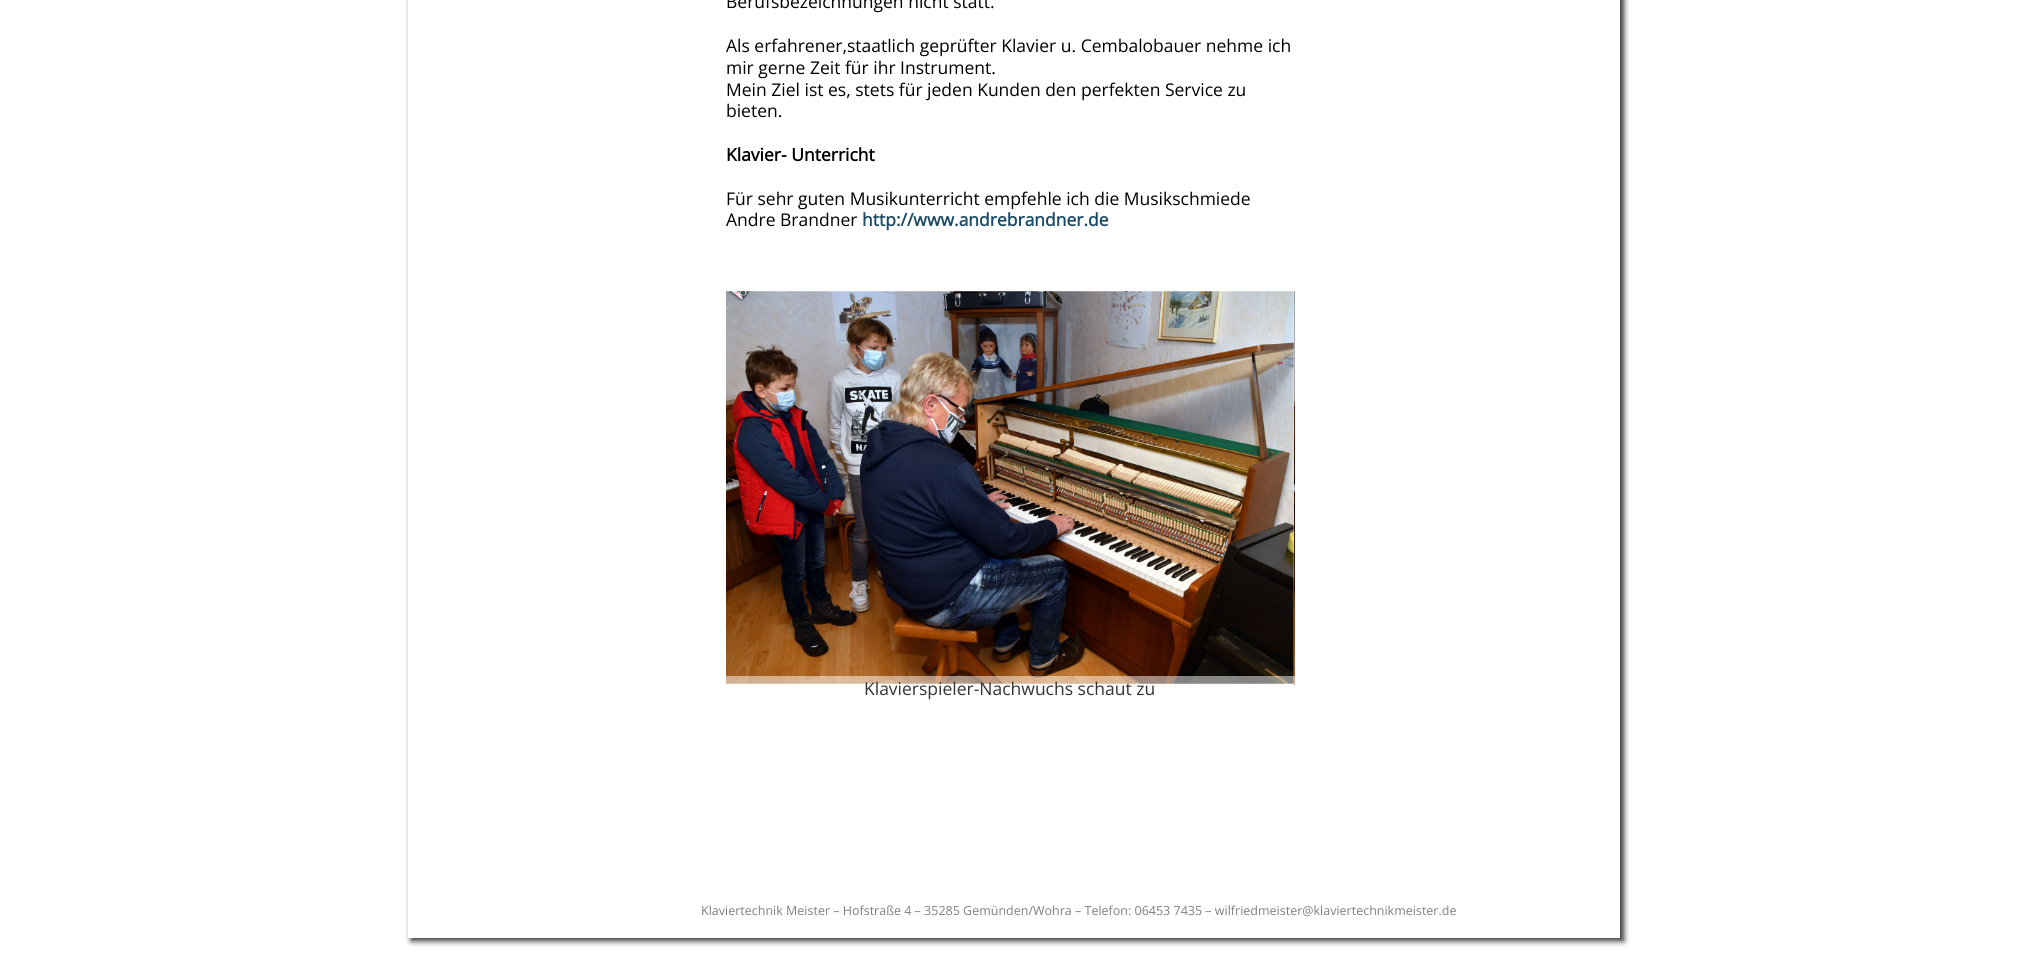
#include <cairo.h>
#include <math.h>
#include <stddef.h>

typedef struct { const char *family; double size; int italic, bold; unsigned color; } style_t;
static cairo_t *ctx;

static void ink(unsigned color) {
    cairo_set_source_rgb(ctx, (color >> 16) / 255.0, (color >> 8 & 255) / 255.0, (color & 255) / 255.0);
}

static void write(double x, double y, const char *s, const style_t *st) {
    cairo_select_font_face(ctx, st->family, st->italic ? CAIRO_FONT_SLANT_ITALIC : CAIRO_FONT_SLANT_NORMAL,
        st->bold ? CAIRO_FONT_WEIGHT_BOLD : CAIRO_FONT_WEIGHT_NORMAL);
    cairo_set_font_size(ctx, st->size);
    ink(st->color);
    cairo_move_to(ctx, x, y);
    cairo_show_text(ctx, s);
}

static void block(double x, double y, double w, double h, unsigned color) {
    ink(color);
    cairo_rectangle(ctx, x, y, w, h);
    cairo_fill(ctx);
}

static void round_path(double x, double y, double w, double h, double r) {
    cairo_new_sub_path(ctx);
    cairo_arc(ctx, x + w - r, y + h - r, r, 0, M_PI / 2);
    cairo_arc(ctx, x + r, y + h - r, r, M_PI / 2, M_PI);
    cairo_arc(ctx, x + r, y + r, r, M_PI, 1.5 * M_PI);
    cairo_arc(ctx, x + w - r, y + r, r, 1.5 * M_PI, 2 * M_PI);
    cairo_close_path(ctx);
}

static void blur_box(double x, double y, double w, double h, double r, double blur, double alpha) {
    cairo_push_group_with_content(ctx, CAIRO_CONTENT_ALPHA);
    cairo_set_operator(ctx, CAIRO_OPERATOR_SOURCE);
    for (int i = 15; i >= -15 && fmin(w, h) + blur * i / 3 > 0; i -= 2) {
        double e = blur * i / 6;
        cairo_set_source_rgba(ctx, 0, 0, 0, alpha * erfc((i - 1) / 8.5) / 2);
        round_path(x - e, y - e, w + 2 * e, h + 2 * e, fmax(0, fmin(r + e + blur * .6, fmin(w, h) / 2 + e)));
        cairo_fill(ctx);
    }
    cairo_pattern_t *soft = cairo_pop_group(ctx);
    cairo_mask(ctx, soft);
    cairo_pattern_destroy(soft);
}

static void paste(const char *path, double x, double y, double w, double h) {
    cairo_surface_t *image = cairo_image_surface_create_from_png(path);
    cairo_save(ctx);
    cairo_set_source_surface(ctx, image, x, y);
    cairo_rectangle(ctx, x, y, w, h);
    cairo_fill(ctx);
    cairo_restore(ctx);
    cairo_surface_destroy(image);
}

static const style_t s1 = {"Open Sans", 17.5, 0, 0, 0x000000};
static const style_t s2 = {"Open Sans", 17.5, 0, 1, 0x000000};
static const style_t s3 = {"Open Sans", 17.5, 0, 1, 0x1c4c65};
static const style_t s4 = {"Open Sans", 17.5, 0, 0, 0x333333};
static const style_t s5 = {"Open Sans", 12.5, 0, 0, 0x808080};

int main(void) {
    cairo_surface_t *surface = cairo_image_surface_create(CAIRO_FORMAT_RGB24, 2026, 960);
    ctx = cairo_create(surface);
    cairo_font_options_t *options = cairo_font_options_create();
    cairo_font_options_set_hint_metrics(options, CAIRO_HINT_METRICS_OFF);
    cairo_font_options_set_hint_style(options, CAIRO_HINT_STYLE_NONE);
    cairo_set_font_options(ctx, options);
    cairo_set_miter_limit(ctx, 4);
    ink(0xffffff);
    cairo_paint(ctx);
    ink(0x333333);
    blur_box(411, -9, 1213, 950, 0, 3, 1);
    block(408, 0, 1212, 938, 0xffffff);
    write(726, 8, "Berufsbezeichnungen nicht statt.", &s1);
    write(726, 52, "Als erfahrener,staatlich geprüfter Klavier u. Cembalobauer nehme ich", &s1);
    write(726, 74, "mir gerne Zeit für ihr Instrument.", &s1);
    write(726, 96, "Mein Ziel ist es, stets für jeden Kunden den perfekten Service zu", &s1);
    write(726, 117, "bieten.", &s1);
    write(726, 161, "Klavier- Unterricht", &s2);
    write(726, 205, "Für sehr guten Musikunterricht empfehle ich die Musikschmiede", &s1);
    write(726, 226, "Andre Brandner", &s1);
    write(862, 226, "http://www.andrebrandner.de", &s3);
    paste("pic1.png", 726, 291, 568, 393);
    paste("pic2.png", 1294, 291, 1, 394);
    cairo_set_source_rgba(ctx, 1, 1, 1, 0.5);
    cairo_rectangle(ctx, 726, 676, 569, 9);
    cairo_fill(ctx);
    write(864, 695, "Klavierspieler-Nachwuchs schaut zu", &s4);
    write(701, 915, "Klaviertechnik Meister – Hofstraße 4 – 35285 Gemünden/Wohra – Telefon: 06453 7435 – wilfriedmeister@klaviertechnikmeister.de", &s5);
    cairo_surface_write_to_png(surface, "screenshot.png");
    cairo_font_options_destroy(options);
    cairo_destroy(ctx);
    cairo_surface_destroy(surface);
    return 0;
}
